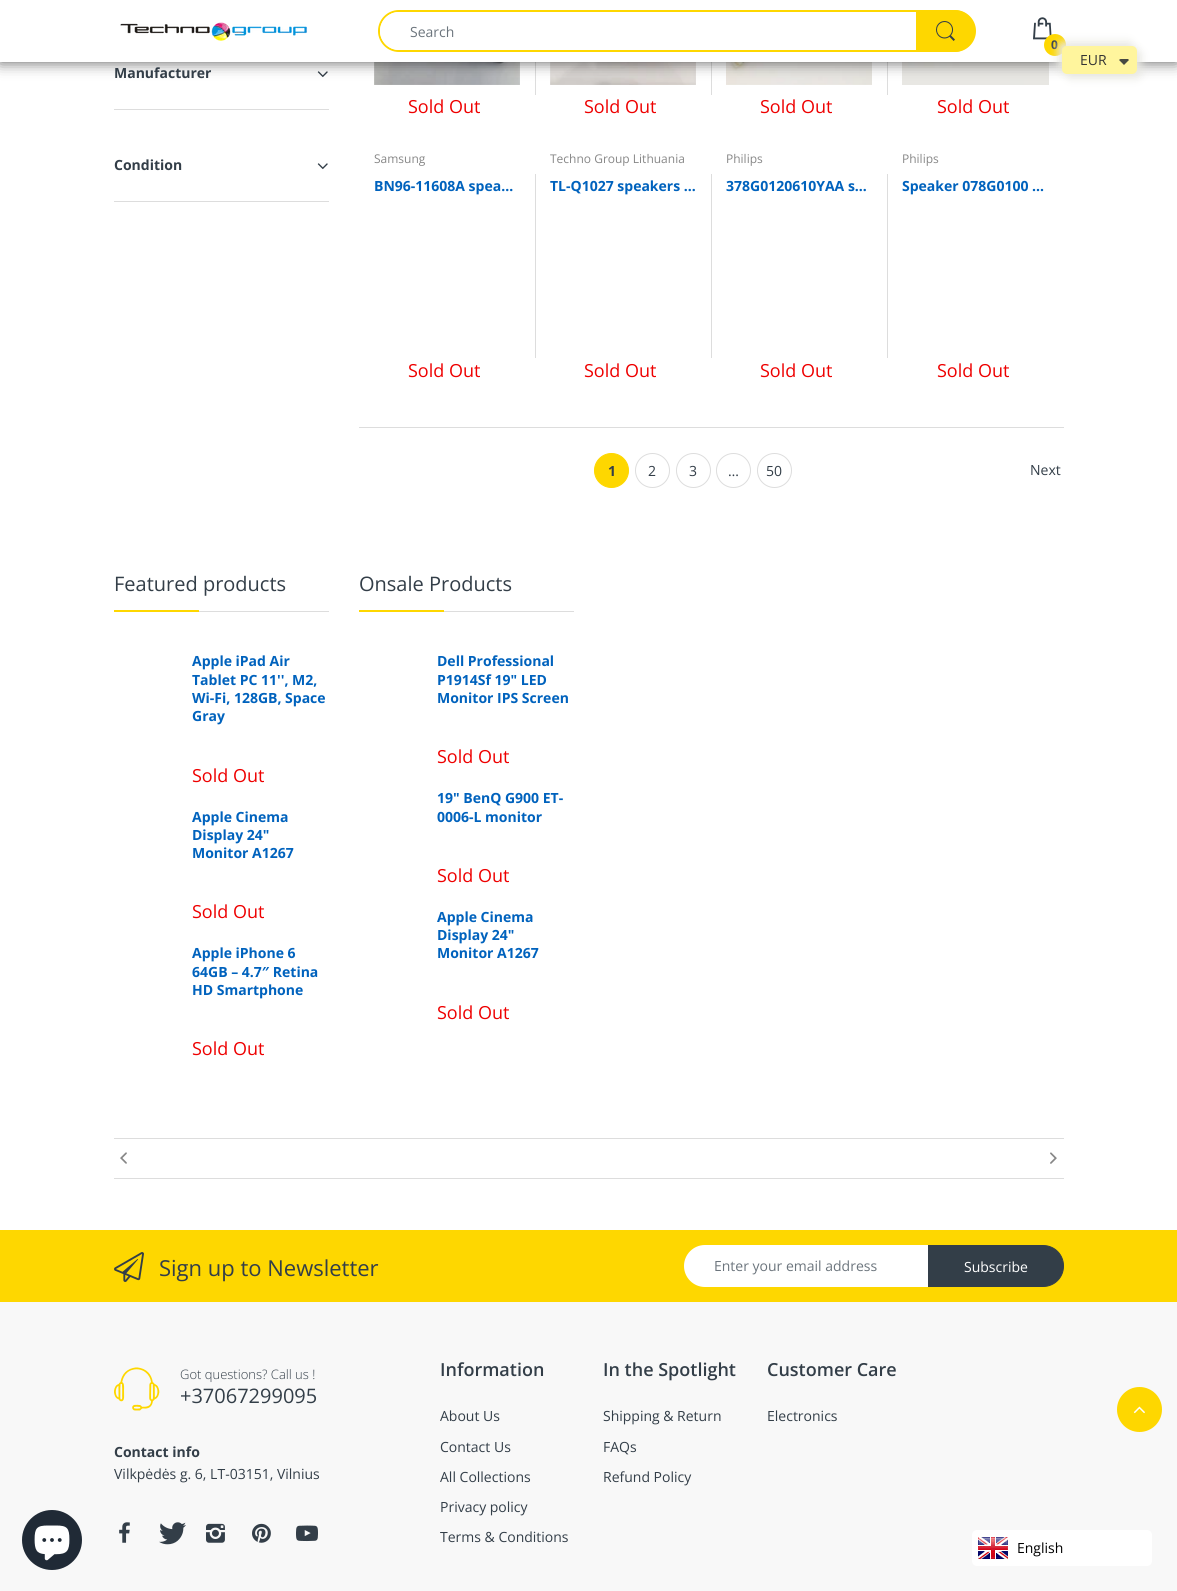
#include <cairo.h>
#include <math.h>
#include <stddef.h>

typedef struct { const char *family; double size; int italic, bold; unsigned color; } style_t;
static cairo_t *ctx;

static void ink(unsigned color) {
    cairo_set_source_rgb(ctx, (color >> 16) / 255.0, (color >> 8 & 255) / 255.0, (color & 255) / 255.0);
}

static void write(double x, double y, const char *s, const style_t *st) {
    cairo_select_font_face(ctx, st->family, st->italic ? CAIRO_FONT_SLANT_ITALIC : CAIRO_FONT_SLANT_NORMAL,
        st->bold ? CAIRO_FONT_WEIGHT_BOLD : CAIRO_FONT_WEIGHT_NORMAL);
    cairo_set_font_size(ctx, st->size);
    ink(st->color);
    cairo_move_to(ctx, x, y);
    cairo_show_text(ctx, s);
}

static void block(double x, double y, double w, double h, unsigned color) {
    ink(color);
    cairo_rectangle(ctx, x, y, w, h);
    cairo_fill(ctx);
}

static void round_path(double x, double y, double w, double h, double r) {
    cairo_new_sub_path(ctx);
    cairo_arc(ctx, x + w - r, y + h - r, r, 0, M_PI / 2);
    cairo_arc(ctx, x + r, y + h - r, r, M_PI / 2, M_PI);
    cairo_arc(ctx, x + r, y + r, r, M_PI, 1.5 * M_PI);
    cairo_arc(ctx, x + w - r, y + r, r, 1.5 * M_PI, 2 * M_PI);
    cairo_close_path(ctx);
}

static void blur_box(double x, double y, double w, double h, double r, double blur, double alpha) {
    cairo_push_group_with_content(ctx, CAIRO_CONTENT_ALPHA);
    cairo_set_operator(ctx, CAIRO_OPERATOR_SOURCE);
    for (int i = 15; i >= -15 && fmin(w, h) + blur * i / 3 > 0; i -= 2) {
        double e = blur * i / 6;
        cairo_set_source_rgba(ctx, 0, 0, 0, alpha * erfc((i - 1) / 8.5) / 2);
        round_path(x - e, y - e, w + 2 * e, h + 2 * e, fmax(0, fmin(r + e + blur * .6, fmin(w, h) / 2 + e)));
        cairo_fill(ctx);
    }
    cairo_pattern_t *soft = cairo_pop_group(ctx);
    cairo_mask(ctx, soft);
    cairo_pattern_destroy(soft);
}

static void paste(const char *path, double x, double y, double w, double h) {
    cairo_surface_t *image = cairo_image_surface_create_from_png(path);
    cairo_save(ctx);
    cairo_set_source_surface(ctx, image, x, y);
    cairo_rectangle(ctx, x, y, w, h);
    cairo_fill(ctx);
    cairo_restore(ctx);
    cairo_surface_destroy(image);
}

static const style_t s1 = {"Open Sans", 14, 0, 0, 0x6c757d};
static const style_t s2 = {"Open Sans", 12, 0, 1, 0x333e48};
static const style_t s3 = {"Open Sans", 14, 0, 1, 0x333e48};
static const style_t s4 = {"Open Sans", 18, 0, 0, 0xee0000};
static const style_t s5 = {"Open Sans", 12, 0, 0, 0x878787};
static const style_t s6 = {"Open Sans", 14, 0, 1, 0x0062bd};
static const style_t s7 = {"Open Sans", 14, 0, 0, 0x333e48};
static const style_t s8 = {"Open Sans", 20, 0, 0, 0x333e48};
static const style_t s9 = {"Open Sans", 22, 0, 0, 0x333e48};
static const style_t s10 = {"Open Sans", 14, 0, 0, 0xffffff};
static const style_t s11 = {"Open Sans Light", 13, 0, 0, 0x333e48};
static const style_t s12 = {"Open Sans SemiBold", 18, 0, 0, 0x333e48};
static const style_t s13 = {"Open Sans", 14, 0, 0, 0x333333};
static const style_t s14 = {"Open Sans", 14, 0, 0, 0x000000};

int main(void) {
    cairo_surface_t *surface = cairo_image_surface_create(CAIRO_FORMAT_RGB24, 1177, 1591);
    ctx = cairo_create(surface);
    cairo_font_options_t *options = cairo_font_options_create();
    cairo_font_options_set_hint_metrics(options, CAIRO_HINT_METRICS_OFF);
    cairo_font_options_set_hint_style(options, CAIRO_HINT_STYLE_NONE);
    cairo_set_font_options(ctx, options);
    cairo_set_miter_limit(ctx, 4);
    ink(0xffffff);
    cairo_paint(ctx);
    paste("pic4.png", 317, 71, 11, 7);
    paste("pic5.png", 374, 62, 146, 23);
    block(535, 62, 1, 33, 0xdddddd);
    paste("pic6.png", 550, 62, 146, 23);
    block(711, 62, 1, 33, 0xdddddd);
    paste("pic7.png", 726, 62, 146, 23);
    block(887, 62, 1, 33, 0xdddddd);
    paste("pic8.png", 902, 62, 147, 23);
    ink(0x000000);
    blur_box(0, 0, 1177, 62, 0, 7.5, 0.65);
    block(0, 0, 1177, 62, 0xffffff);
    paste("pic1.png", 120, 22, 188, 19);
    round_path(379, 11, 595, 40, 20);
    ink(0xfed700);
    cairo_stroke(ctx);
    ink(0xffffff);
    round_path(380, 12, 593, 38, 19);
    cairo_fill(ctx);
    write(410, 37, "Search", &s1);
    ink(0xfed700);
    cairo_new_path(ctx);
    cairo_move_to(ctx, 916, 10);
    cairo_line_to(ctx, 955, 10);
    cairo_curve_to(ctx, 966.5, 10, 976, 19.5, 976, 31);
    cairo_curve_to(ctx, 976, 42.5, 966.5, 52, 955, 52);
    cairo_line_to(ctx, 916, 52);
    cairo_close_path(ctx);
    cairo_fill(ctx);
    paste("pic2.png", 936, 21, 19, 20);
    paste("pic3.png", 1033, 17, 19, 23);
    cairo_arc(ctx, 1055, 45, 11, 0, 2 * M_PI);
    cairo_fill(ctx);
    write(1051, 49, "0", &s2);
    block(114, 109, 215, 1, 0xdddddd);
    write(114, 78, "Manufacturer", &s3);
    block(114, 201, 215, 1, 0xdddddd);
    write(114, 170, "Condition", &s3);
    paste("pic4.png", 317, 163, 11, 7);
    write(408, 113, "Sold Out", &s4);
    write(584, 113, "Sold Out", &s4);
    write(760, 113, "Sold Out", &s4);
    write(937, 113, "Sold Out", &s4);
    write(374, 163, "Samsung", &s5);
    write(374, 191, "BN96-11608A spea…", &s6);
    write(408, 377, "Sold Out", &s4);
    block(535, 174, 1, 184, 0xdddddd);
    write(550, 163, "Techno Group Lithuania", &s5);
    write(550, 191, "TL-Q1027 speakers …", &s6);
    write(584, 377, "Sold Out", &s4);
    block(711, 174, 1, 184, 0xdddddd);
    write(726, 163, "Philips", &s5);
    write(726, 191, "378G0120610YAA s…", &s6);
    write(760, 377, "Sold Out", &s4);
    block(887, 174, 1, 184, 0xdddddd);
    write(902, 163, "Philips", &s5);
    write(902, 191, "Speaker 078G0100 …", &s6);
    write(937, 377, "Sold Out", &s4);
    block(359, 427, 705, 1, 0xdddddd);
    ink(0xfed700);
    cairo_new_path(ctx);
    cairo_arc(ctx, 611.5, 470.5, 17, 0, 2 * M_PI);
    cairo_fill_preserve(ctx);
    cairo_set_line_width(ctx, 1);
    cairo_stroke(ctx);
    write(608, 476, "1", &s3);
    cairo_new_path(ctx);
    cairo_arc(ctx, 652.5, 470.5, 17, 0, 2 * M_PI);
    ink(0xdddddd);
    cairo_stroke(ctx);
    write(648, 476, "2", &s7);
    cairo_new_path(ctx);
    cairo_arc(ctx, 693.5, 470.5, 17, 0, 2 * M_PI);
    ink(0xdddddd);
    cairo_stroke(ctx);
    write(689, 476, "3", &s7);
    cairo_new_path(ctx);
    cairo_arc(ctx, 733.5, 470.5, 17, 0, 2 * M_PI);
    ink(0xdddddd);
    cairo_stroke(ctx);
    write(728, 476, "…", &s7);
    cairo_new_path(ctx);
    cairo_arc(ctx, 774.5, 470.5, 17, 0, 2 * M_PI);
    ink(0xdddddd);
    cairo_stroke(ctx);
    write(766, 476, "50", &s7);
    write(1030, 475, "Next", &s7);
    block(199, 611, 130, 1, 0xdddddd);
    write(114, 591, "Featured products", &s8);
    block(114, 610, 85, 2, 0xfed700);
    write(192, 666, "Apple iPad Air", &s6);
    write(192, 685, "Tablet PC 11'', M2,", &s6);
    write(192, 703, "Wi-Fi, 128GB, Space", &s6);
    write(192, 721, "Gray", &s6);
    write(192, 782, "Sold Out", &s4);
    write(192, 822, "Apple Cinema", &s6);
    write(192, 840, "Display 24\"", &s6);
    write(192, 858, "Monitor A1267", &s6);
    write(192, 918, "Sold Out", &s4);
    write(192, 958, "Apple iPhone 6", &s6);
    write(192, 977, "64GB – 4.7″ Retina", &s6);
    write(192, 995, "HD Smartphone", &s6);
    write(192, 1055, "Sold Out", &s4);
    block(444, 611, 130, 1, 0xdddddd);
    write(359, 591, "Onsale Products", &s8);
    block(359, 610, 85, 2, 0xfed700);
    write(437, 666, "Dell Professional", &s6);
    write(437, 685, "P1914Sf 19\" LED", &s6);
    write(437, 703, "Monitor IPS Screen", &s6);
    write(437, 763, "Sold Out", &s4);
    write(437, 803, "19\" BenQ G900 ET-", &s6);
    write(437, 822, "0006-L monitor", &s6);
    write(437, 882, "Sold Out", &s4);
    write(437, 922, "Apple Cinema", &s6);
    write(437, 940, "Display 24\"", &s6);
    write(437, 958, "Monitor A1267", &s6);
    write(437, 1019, "Sold Out", &s4);
    block(114, 1138, 950, 1, 0xdddddd);
    block(114, 1178, 950, 1, 0xdddddd);
    paste("pic9.png", 120, 1152, 7, 12);
    paste("pic10.png", 1050, 1152, 7, 12);
    block(0, 1230, 1177, 72, 0xfed700);
    paste("pic11.png", 114, 1252, 30, 30);
    write(159, 1276, "Sign up to Newsletter", &s9);
    ink(0xffffff);
    round_path(684, 1245, 323, 42, 21);
    cairo_fill(ctx);
    write(714, 1271, "Enter your email address", &s1);
    ink(0x333e48);
    cairo_new_path(ctx);
    cairo_move_to(ctx, 928.5, 1245.5);
    cairo_line_to(ctx, 1043, 1245.5);
    cairo_curve_to(ctx, 1054.5, 1245.5, 1063.5, 1254.5, 1063.5, 1266);
    cairo_curve_to(ctx, 1063.5, 1277.5, 1054.5, 1286.5, 1043, 1286.5);
    cairo_line_to(ctx, 928.5, 1286.5);
    cairo_close_path(ctx);
    cairo_fill_preserve(ctx);
    cairo_stroke(ctx);
    write(964, 1272, "Subscribe", &s10);
    block(0, 1302, 1177, 289, 0xf8f8f8);
    paste("pic12.png", 114, 1367, 46, 44);
    write(180, 1379, "Got questions? Call us !", &s11);
    write(180, 1403, "+37067299095", &s8);
    write(114, 1457, "Contact info", &s3);
    write(114, 1479, "Vilkpėdės g. 6, LT-03151, Vilnius", &s7);
    paste("pic13.png", 119, 1522, 11, 21);
    paste("pic14.png", 159, 1522, 27, 23);
    paste("pic15.png", 206, 1523, 19, 20);
    paste("pic16.png", 252, 1523, 19, 20);
    paste("pic17.png", 296, 1525, 22, 17);
    write(440, 1376, "Information", &s12);
    write(440, 1421, "About Us", &s7);
    write(440, 1452, "Contact Us", &s7);
    write(440, 1482, "All Collections", &s7);
    write(440, 1512, "Privacy policy", &s7);
    write(440, 1542, "Terms & Conditions", &s7);
    write(603, 1376, "In the Spotlight", &s12);
    write(603, 1421, "Shipping & Return", &s7);
    write(603, 1452, "FAQs", &s7);
    write(603, 1482, "Refund Policy", &s7);
    write(767, 1376, "Customer Care", &s12);
    write(767, 1421, "Electronics", &s7);
    ink(0xe8e8e2);
    blur_box(1058, 42, 75, 28, 5, 4.5, 1);
    blur_box(1066, 50, 75, 28, 5, 4.5, 1);
    ink(0xfff59d);
    round_path(1062, 46, 75, 28, 5);
    cairo_fill(ctx);
    write(1080, 65, "EUR", &s13);
    ink(0x474942);
    cairo_new_path(ctx);
    cairo_move_to(ctx, 1121, 59);
    cairo_curve_to(ctx, 1120, 59, 1119.5, 59.5, 1119, 60);
    cairo_line_to(ctx, 1124, 65);
    cairo_line_to(ctx, 1129, 60);
    cairo_line_to(ctx, 1128, 59);
    cairo_close_path(ctx);
    cairo_fill(ctx);
    ink(0xfed700);
    cairo_arc(ctx, 1139.5, 1409.5, 22.5, 0, 2 * M_PI);
    cairo_fill(ctx);
    paste("pic18.png", 1133, 1406, 12, 8);
    ink(0x202a36);
    cairo_arc(ctx, 52, 1540, 30, 0, 2 * M_PI);
    cairo_fill(ctx);
    paste("pic19.png", 34, 1525, 36, 36);
    ink(0xffffff);
    round_path(972, 1530, 180, 36, 5);
    cairo_fill(ctx);
    paste("pic20.png", 978, 1537, 30, 22);
    write(1017, 1553, "English", &s14);
    cairo_surface_write_to_png(surface, "screenshot.png");
    cairo_font_options_destroy(options);
    cairo_destroy(ctx);
    cairo_surface_destroy(surface);
    return 0;
}
